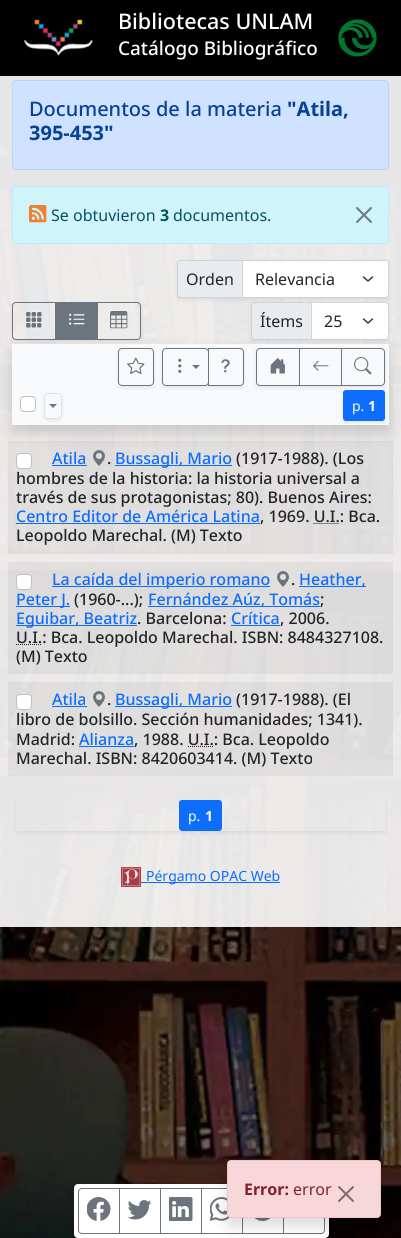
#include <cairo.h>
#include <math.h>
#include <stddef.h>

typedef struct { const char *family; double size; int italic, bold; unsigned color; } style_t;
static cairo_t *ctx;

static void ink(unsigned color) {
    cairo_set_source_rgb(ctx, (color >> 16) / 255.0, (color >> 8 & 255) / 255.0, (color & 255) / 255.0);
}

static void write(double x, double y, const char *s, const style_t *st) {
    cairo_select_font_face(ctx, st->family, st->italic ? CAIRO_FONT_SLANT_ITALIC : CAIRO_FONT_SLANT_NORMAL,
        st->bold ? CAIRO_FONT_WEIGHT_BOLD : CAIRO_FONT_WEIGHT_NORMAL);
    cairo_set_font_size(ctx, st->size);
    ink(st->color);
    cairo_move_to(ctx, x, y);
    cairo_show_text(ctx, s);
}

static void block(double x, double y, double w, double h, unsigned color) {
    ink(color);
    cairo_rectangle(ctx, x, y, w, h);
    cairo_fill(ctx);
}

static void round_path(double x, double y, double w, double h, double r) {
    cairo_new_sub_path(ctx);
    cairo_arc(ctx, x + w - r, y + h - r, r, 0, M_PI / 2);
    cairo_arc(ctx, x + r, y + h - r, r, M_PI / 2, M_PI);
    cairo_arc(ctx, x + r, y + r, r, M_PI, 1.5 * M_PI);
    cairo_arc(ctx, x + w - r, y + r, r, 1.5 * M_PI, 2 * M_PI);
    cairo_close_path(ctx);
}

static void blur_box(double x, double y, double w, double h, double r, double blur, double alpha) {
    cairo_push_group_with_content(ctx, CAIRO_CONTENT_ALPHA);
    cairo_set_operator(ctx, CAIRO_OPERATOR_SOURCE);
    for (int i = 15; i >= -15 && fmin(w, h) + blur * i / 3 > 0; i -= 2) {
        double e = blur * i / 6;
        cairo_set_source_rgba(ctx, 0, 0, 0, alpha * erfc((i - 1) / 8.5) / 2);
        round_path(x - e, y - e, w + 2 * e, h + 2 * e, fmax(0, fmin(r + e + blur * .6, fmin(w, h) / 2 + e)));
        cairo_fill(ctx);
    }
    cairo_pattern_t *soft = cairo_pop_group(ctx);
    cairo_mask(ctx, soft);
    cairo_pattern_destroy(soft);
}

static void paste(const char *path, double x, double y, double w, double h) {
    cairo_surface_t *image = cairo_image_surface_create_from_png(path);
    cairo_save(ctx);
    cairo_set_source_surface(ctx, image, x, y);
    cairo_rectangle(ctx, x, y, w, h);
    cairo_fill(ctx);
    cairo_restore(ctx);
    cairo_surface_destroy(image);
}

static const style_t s1 = {"Noto Sans Medium", 21.5, 0, 0, 0xffffff};
static const style_t s2 = {"Noto Sans Medium", 18.9, 0, 0, 0xffffff};
static const style_t s3 = {"Noto Sans Medium", 20, 0, 0, 0x084298};
static const style_t s4 = {"Noto Sans", 20, 0, 1, 0x084298};
static const style_t s5 = {"Noto Sans", 16, 0, 0, 0x055160};
static const style_t s6 = {"Noto Sans", 16, 0, 1, 0x055160};
static const style_t s7 = {"Noto Sans", 16, 0, 0, 0x212529};
static const style_t s8 = {"Noto Sans", 14, 0, 0, 0xffffff};
static const style_t s9 = {"Noto Sans", 14, 0, 1, 0xffffff};
static const style_t s10 = {"Noto Sans Medium", 16, 0, 0, 0x0d6efd};
static const style_t s11 = {"Noto Sans Medium", 16, 0, 0, 0x212529};
static const style_t s12 = {"Noto Sans", 14, 0, 0, 0x0d6efd};
static const style_t s13 = {"Noto Sans", 16, 0, 1, 0x842029};
static const style_t s14 = {"Noto Sans", 16, 0, 0, 0x842029};

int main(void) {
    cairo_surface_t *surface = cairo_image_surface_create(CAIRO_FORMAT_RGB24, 401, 1238);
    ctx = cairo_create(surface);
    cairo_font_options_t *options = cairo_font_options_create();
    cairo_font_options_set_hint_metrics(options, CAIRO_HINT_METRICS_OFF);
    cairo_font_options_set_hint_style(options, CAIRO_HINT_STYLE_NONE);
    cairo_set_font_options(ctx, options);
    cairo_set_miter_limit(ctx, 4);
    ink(0x000000);
    cairo_paint(ctx);
    paste("pic1.png", 0, 141, 401, 1097);
    paste("pic2.png", 24, 19, 69, 37);
    write(118, 29, "Bibliotecas UNLAM", &s1);
    write(118, 55, "Catálogo Bibliográfico", &s2);
    paste("pic3.png", 338, 19, 39, 38);
    cairo_set_source_rgba(ctx, 1, 1, 1, 0.9);
    cairo_rectangle(ctx, 0, 76, 401, 851);
    cairo_fill(ctx);
    ink(0xcfe2ff);
    round_path(12.5, 80.5, 376, 89, 3.5);
    cairo_fill_preserve(ctx);
    ink(0xb6d4fe);
    cairo_set_line_width(ctx, 1);
    cairo_stroke(ctx);
    write(29, 116, "Documentos de la materia", &s3);
    write(287, 116, "\"Atila,", &s4);
    write(29, 140, "395-453\"", &s4);
    ink(0xcff4fc);
    round_path(12.5, 186.5, 376, 57, 3.5);
    cairo_fill_preserve(ctx);
    ink(0xb6effb);
    cairo_stroke(ctx);
    paste("pic4.png", 29, 205, 18, 18);
    write(51, 221, "Se obtuvieron", &s5);
    write(160, 221, "3", &s6);
    write(173, 221, "documentos.", &s5);
    paste("pic5.png", 356, 207, 16, 16);
    ink(0x000000);
    blur_box(177, 262, 212, 38, 0, 2, 0.07);
    ink(0xe9ecef);
    cairo_new_path(ctx);
    cairo_move_to(ctx, 181, 260.5);
    cairo_line_to(ctx, 242.5, 260.5);
    cairo_line_to(ctx, 242.5, 297.5);
    cairo_line_to(ctx, 181, 297.5);
    cairo_curve_to(ctx, 179, 297.5, 177.5, 296, 177.5, 294);
    cairo_line_to(ctx, 177.5, 264);
    cairo_curve_to(ctx, 177.5, 262, 179, 260.5, 181, 260.5);
    cairo_close_path(ctx);
    cairo_fill_preserve(ctx);
    ink(0xced4da);
    cairo_stroke(ctx);
    write(186, 285, "Orden", &s7);
    ink(0xffffff);
    cairo_new_path(ctx);
    cairo_move_to(ctx, 242, 260);
    cairo_line_to(ctx, 385, 260);
    cairo_curve_to(ctx, 387, 260, 389, 262, 389, 264);
    cairo_line_to(ctx, 389, 294);
    cairo_curve_to(ctx, 389, 296, 387, 298, 385, 298);
    cairo_line_to(ctx, 242, 298);
    cairo_close_path(ctx);
    cairo_fill(ctx);
    cairo_new_path(ctx);
    cairo_move_to(ctx, 363.5, 277);
    cairo_line_to(ctx, 368, 281);
    cairo_line_to(ctx, 372.5, 277);
    ink(0x343a40);
    cairo_set_line_width(ctx, 1.5);
    cairo_set_line_cap(ctx, CAIRO_LINE_CAP_ROUND);
    cairo_set_line_join(ctx, CAIRO_LINE_JOIN_ROUND);
    cairo_stroke(ctx);
    cairo_new_path(ctx);
    cairo_move_to(ctx, 242.5, 260.5);
    cairo_line_to(ctx, 385, 260.5);
    cairo_curve_to(ctx, 387, 260.5, 388.5, 262, 388.5, 264);
    cairo_line_to(ctx, 388.5, 294);
    cairo_curve_to(ctx, 388.5, 296, 387, 297.5, 385, 297.5);
    cairo_line_to(ctx, 242.5, 297.5);
    cairo_close_path(ctx);
    ink(0xced4da);
    cairo_set_line_width(ctx, 1);
    cairo_set_line_cap(ctx, CAIRO_LINE_CAP_BUTT);
    cairo_set_line_join(ctx, CAIRO_LINE_JOIN_MITER);
    cairo_stroke(ctx);
    write(255, 285, "Relevancia", &s7);
    cairo_save(ctx);
    cairo_set_fill_rule(ctx, CAIRO_FILL_RULE_EVEN_ODD);
    cairo_new_path(ctx);
    cairo_move_to(ctx, 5, 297);
    cairo_line_to(ctx, 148, 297);
    cairo_line_to(ctx, 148, 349);
    cairo_line_to(ctx, 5, 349);
    cairo_close_path(ctx);
    cairo_move_to(ctx, 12, 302);
    cairo_line_to(ctx, 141, 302);
    cairo_line_to(ctx, 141, 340);
    cairo_line_to(ctx, 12, 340);
    cairo_close_path(ctx);
    cairo_clip(ctx);
    ink(0x000000);
    blur_box(12, 304, 129, 38, 0, 2, 0.07);
    cairo_restore(ctx);
    cairo_new_path(ctx);
    cairo_move_to(ctx, 16, 302.5);
    cairo_line_to(ctx, 55.5, 302.5);
    cairo_line_to(ctx, 55.5, 339.5);
    cairo_line_to(ctx, 16, 339.5);
    cairo_curve_to(ctx, 14, 339.5, 12.5, 338, 12.5, 336);
    cairo_line_to(ctx, 12.5, 306);
    cairo_curve_to(ctx, 12.5, 304, 14, 302.5, 16, 302.5);
    cairo_close_path(ctx);
    ink(0x6c757d);
    cairo_stroke(ctx);
    paste("pic6.png", 26, 312, 16, 16);
    block(56, 302, 41, 38, 0x6c757d);
    paste("pic7.png", 69, 313, 16, 12);
    cairo_new_path(ctx);
    cairo_move_to(ctx, 97.5, 302.5);
    cairo_line_to(ctx, 137, 302.5);
    cairo_curve_to(ctx, 139, 302.5, 140.5, 304, 140.5, 306);
    cairo_line_to(ctx, 140.5, 336);
    cairo_curve_to(ctx, 140.5, 338, 139, 339.5, 137, 339.5);
    cairo_line_to(ctx, 97.5, 339.5);
    cairo_close_path(ctx);
    cairo_stroke(ctx);
    paste("pic8.png", 110, 311, 18, 18);
    ink(0x000000);
    blur_box(251, 304, 138, 38, 0, 2, 0.07);
    ink(0xe9ecef);
    cairo_new_path(ctx);
    cairo_move_to(ctx, 255, 302.5);
    cairo_line_to(ctx, 311.5, 302.5);
    cairo_line_to(ctx, 311.5, 339.5);
    cairo_line_to(ctx, 255, 339.5);
    cairo_curve_to(ctx, 253, 339.5, 251.5, 338, 251.5, 336);
    cairo_line_to(ctx, 251.5, 306);
    cairo_curve_to(ctx, 251.5, 304, 253, 302.5, 255, 302.5);
    cairo_close_path(ctx);
    cairo_fill_preserve(ctx);
    ink(0xced4da);
    cairo_stroke(ctx);
    write(260, 327, "Ítems", &s7);
    ink(0xffffff);
    cairo_new_path(ctx);
    cairo_move_to(ctx, 311, 302);
    cairo_line_to(ctx, 385, 302);
    cairo_curve_to(ctx, 387, 302, 389, 304, 389, 306);
    cairo_line_to(ctx, 389, 336);
    cairo_curve_to(ctx, 389, 338, 387, 340, 385, 340);
    cairo_line_to(ctx, 311, 340);
    cairo_close_path(ctx);
    cairo_fill(ctx);
    cairo_new_path(ctx);
    cairo_move_to(ctx, 363.5, 319);
    cairo_line_to(ctx, 368, 323);
    cairo_line_to(ctx, 372.5, 319);
    ink(0x343a40);
    cairo_set_line_width(ctx, 1.5);
    cairo_set_line_cap(ctx, CAIRO_LINE_CAP_ROUND);
    cairo_set_line_join(ctx, CAIRO_LINE_JOIN_ROUND);
    cairo_stroke(ctx);
    cairo_new_path(ctx);
    cairo_move_to(ctx, 311.5, 302.5);
    cairo_line_to(ctx, 385, 302.5);
    cairo_curve_to(ctx, 387, 302.5, 388.5, 304, 388.5, 306);
    cairo_line_to(ctx, 388.5, 336);
    cairo_curve_to(ctx, 388.5, 338, 387, 339.5, 385, 339.5);
    cairo_line_to(ctx, 311.5, 339.5);
    cairo_close_path(ctx);
    ink(0xced4da);
    cairo_set_line_width(ctx, 1);
    cairo_set_line_cap(ctx, CAIRO_LINE_CAP_BUTT);
    cairo_set_line_join(ctx, CAIRO_LINE_JOIN_MITER);
    cairo_stroke(ctx);
    write(324, 327, "25", &s7);
    cairo_set_source_rgba(ctx, 0, 0, 0, 0.05);
    cairo_rectangle(ctx, 8, 441, 385, 113);
    cairo_fill(ctx);
    ink(0xffffff);
    round_path(16, 453, 16, 16, 4);
    cairo_fill(ctx);
    round_path(16.5, 453.5, 15, 15, 3.5);
    cairo_set_source_rgba(ctx, 0, 0, 0, 0.25);
    cairo_stroke(ctx);
    paste("pic15.png", 93, 450, 12, 16);
    ink(0x000000);
    blur_box(12, 352, 377, 81, 0, 8, 0.15);
    block(12, 344, 377, 81, 0xf8f9fa);
    cairo_save(ctx);
    cairo_set_fill_rule(ctx, CAIRO_FILL_RULE_EVEN_ODD);
    cairo_new_path(ctx);
    cairo_move_to(ctx, 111, 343);
    cairo_line_to(ctx, 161, 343);
    cairo_line_to(ctx, 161, 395);
    cairo_line_to(ctx, 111, 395);
    cairo_close_path(ctx);
    cairo_move_to(ctx, 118, 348);
    cairo_line_to(ctx, 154, 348);
    cairo_line_to(ctx, 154, 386);
    cairo_line_to(ctx, 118, 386);
    cairo_close_path(ctx);
    cairo_clip(ctx);
    ink(0x000000);
    blur_box(118, 350, 36, 38, 0, 2, 0.07);
    cairo_restore(ctx);
    round_path(118.5, 348.5, 35, 37, 3.5);
    ink(0x6c757d);
    cairo_stroke(ctx);
    paste("pic9.png", 127, 357, 18, 17);
    cairo_save(ctx);
    cairo_set_fill_rule(ctx, CAIRO_FILL_RULE_EVEN_ODD);
    cairo_new_path(ctx);
    cairo_move_to(ctx, 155, 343);
    cairo_line_to(ctx, 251, 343);
    cairo_line_to(ctx, 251, 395);
    cairo_line_to(ctx, 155, 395);
    cairo_close_path(ctx);
    cairo_move_to(ctx, 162, 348);
    cairo_line_to(ctx, 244, 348);
    cairo_line_to(ctx, 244, 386);
    cairo_line_to(ctx, 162, 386);
    cairo_close_path(ctx);
    cairo_clip(ctx);
    ink(0x000000);
    blur_box(162, 350, 82, 38, 0, 2, 0.07);
    cairo_restore(ctx);
    round_path(162.5, 348.5, 46, 37, 3.5);
    cairo_stroke(ctx);
    paste("pic10.png", 178, 358, 4, 15);
    cairo_new_path(ctx);
    cairo_move_to(ctx, 192, 365);
    cairo_line_to(ctx, 200, 365);
    cairo_line_to(ctx, 196, 369);
    cairo_close_path(ctx);
    cairo_fill(ctx);
    cairo_new_path(ctx);
    cairo_move_to(ctx, 208.5, 348.5);
    cairo_line_to(ctx, 240, 348.5);
    cairo_curve_to(ctx, 242, 348.5, 243.5, 350, 243.5, 352);
    cairo_line_to(ctx, 243.5, 382);
    cairo_curve_to(ctx, 243.5, 384, 242, 385.5, 240, 385.5);
    cairo_line_to(ctx, 208.5, 385.5);
    cairo_close_path(ctx);
    cairo_stroke(ctx);
    paste("pic11.png", 221, 359, 9, 14);
    cairo_save(ctx);
    cairo_set_fill_rule(ctx, CAIRO_FILL_RULE_EVEN_ODD);
    cairo_new_path(ctx);
    cairo_move_to(ctx, 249, 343);
    cairo_line_to(ctx, 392, 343);
    cairo_line_to(ctx, 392, 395);
    cairo_line_to(ctx, 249, 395);
    cairo_close_path(ctx);
    cairo_move_to(ctx, 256, 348);
    cairo_line_to(ctx, 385, 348);
    cairo_line_to(ctx, 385, 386);
    cairo_line_to(ctx, 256, 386);
    cairo_close_path(ctx);
    cairo_clip(ctx);
    ink(0x000000);
    blur_box(256, 350, 129, 38, 0, 2, 0.07);
    cairo_restore(ctx);
    cairo_new_path(ctx);
    cairo_move_to(ctx, 260, 348.5);
    cairo_line_to(ctx, 299.5, 348.5);
    cairo_line_to(ctx, 299.5, 385.5);
    cairo_line_to(ctx, 260, 385.5);
    cairo_curve_to(ctx, 258, 385.5, 256.5, 384, 256.5, 382);
    cairo_line_to(ctx, 256.5, 352);
    cairo_curve_to(ctx, 256.5, 350, 258, 348.5, 260, 348.5);
    cairo_close_path(ctx);
    cairo_stroke(ctx);
    paste("pic12.png", 270, 358, 15, 16);
    ink(0x000000);
    blur_box(343, 392, 42, 31, 0, 2, 0.07);
    cairo_rectangle(ctx, 299.5, 348.5, 42, 37);
    ink(0x6c757d);
    cairo_stroke(ctx);
    paste("pic13.png", 313, 360, 16, 11);
    cairo_new_path(ctx);
    cairo_move_to(ctx, 341.5, 348.5);
    cairo_line_to(ctx, 381, 348.5);
    cairo_curve_to(ctx, 383, 348.5, 384.5, 350, 384.5, 352);
    cairo_line_to(ctx, 384.5, 382);
    cairo_curve_to(ctx, 384.5, 384, 383, 385.5, 381, 385.5);
    cairo_line_to(ctx, 341.5, 385.5);
    cairo_close_path(ctx);
    cairo_stroke(ctx);
    paste("pic14.png", 354, 357, 18, 18);
    ink(0xffffff);
    round_path(20.5, 396.5, 15, 15, 3.5);
    cairo_fill_preserve(ctx);
    ink(0xbfbfbf);
    cairo_stroke(ctx);
    cairo_save(ctx);
    cairo_set_fill_rule(ctx, CAIRO_FILL_RULE_EVEN_ODD);
    cairo_new_path(ctx);
    cairo_move_to(ctx, 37, 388);
    cairo_line_to(ctx, 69, 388);
    cairo_line_to(ctx, 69, 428);
    cairo_line_to(ctx, 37, 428);
    cairo_close_path(ctx);
    cairo_move_to(ctx, 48, 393);
    cairo_line_to(ctx, 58, 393);
    cairo_curve_to(ctx, 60, 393, 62, 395, 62, 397);
    cairo_line_to(ctx, 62, 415);
    cairo_curve_to(ctx, 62, 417, 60, 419, 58, 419);
    cairo_line_to(ctx, 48, 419);
    cairo_curve_to(ctx, 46, 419, 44, 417, 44, 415);
    cairo_line_to(ctx, 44, 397);
    cairo_curve_to(ctx, 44, 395, 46, 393, 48, 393);
    cairo_close_path(ctx);
    cairo_clip(ctx);
    ink(0x000000);
    blur_box(44, 395, 18, 26, 4, 2, 0.07);
    cairo_restore(ctx);
    round_path(44.5, 393.5, 17, 25, 3.5);
    ink(0xdee2e6);
    cairo_stroke(ctx);
    ink(0x6c757d);
    cairo_new_path(ctx);
    cairo_move_to(ctx, 49, 404);
    cairo_line_to(ctx, 57, 404);
    cairo_line_to(ctx, 53, 408);
    cairo_close_path(ctx);
    cairo_fill(ctx);
    ink(0x0d6efd);
    round_path(343.5, 390.5, 41, 30, 2.5);
    cairo_fill_preserve(ctx);
    cairo_stroke(ctx);
    write(352, 411, "p.", &s8);
    write(368, 411, "1", &s9);
    write(52, 464, "Atila", &s10);
    block(52, 465, 35, 1, 0x0d6efd);
    write(107, 464, ".", &s11);
    block(115, 465, 117, 1, 0x0d6efd);
    write(115, 464, "Bussagli, Mario", &s10);
    write(236, 464, "(1917-1988). (Los", &s11);
    write(16, 484, "hombres de la historia: la historia universal a", &s11);
    write(16, 503, "través de sus protagonistas; 80). Buenos Aires:", &s11);
    write(16, 522, "Centro Editor de América Latina", &s10);
    block(16, 523, 244, 1, 0x0d6efd);
    write(260, 522, ", 1969. U.I.: Bca.", &s11);
    cairo_new_path(ctx);
    cairo_move_to(ctx, 313.5, 523.5);
    cairo_line_to(ctx, 339.5, 523.5);
    cairo_set_dash(ctx, (double[]){1, 1}, 2, 0);
    cairo_stroke(ctx);
    write(16, 541, "Leopoldo Marechal. (M) Texto", &s11);
    cairo_set_source_rgba(ctx, 0, 0, 0, 0.05);
    cairo_rectangle(ctx, 8, 562, 385, 112);
    cairo_fill(ctx);
    ink(0xffffff);
    round_path(16, 574, 16, 16, 4);
    cairo_fill(ctx);
    round_path(16.5, 574.5, 15, 15, 3.5);
    cairo_set_source_rgba(ctx, 0, 0, 0, 0.25);
    cairo_set_dash(ctx, NULL, 0, 0);
    cairo_stroke(ctx);
    block(52, 586, 218, 1, 0x0d6efd);
    write(52, 585, "La caída del imperio romano", &s10);
    paste("pic16.png", 277, 571, 12, 16);
    write(291, 585, ".", &s11);
    block(299, 586, 67, 1, 0x0d6efd);
    write(299, 585, "Heather,", &s10);
    block(16, 606, 54, 1, 0x0d6efd);
    write(16, 605, "Peter J.", &s10);
    write(74, 605, "(1960-...);", &s11);
    block(148, 606, 172, 1, 0x0d6efd);
    write(148, 605, "Fernández Aúz, Tomás", &s10);
    write(320, 605, ";", &s11);
    block(16, 625, 121, 1, 0x0d6efd);
    write(16, 624, "Eguibar, Beatriz", &s10);
    write(137, 624, ". Barcelona:", &s11);
    write(231, 624, "Crítica", &s10);
    block(231, 625, 49, 1, 0x0d6efd);
    write(280, 624, ", 2006.", &s11);
    cairo_new_path(ctx);
    cairo_move_to(ctx, 16, 644.5);
    cairo_line_to(ctx, 42, 644.5);
    cairo_set_dash(ctx, (double[]){1, 1}, 2, 0);
    cairo_stroke(ctx);
    write(16, 643, "U.I.: Bca. Leopoldo Marechal. ISBN: 8484327108.", &s11);
    write(16, 662, "(M) Texto", &s11);
    cairo_set_source_rgba(ctx, 0, 0, 0, 0.05);
    cairo_rectangle(ctx, 8, 682, 385, 94);
    cairo_fill(ctx);
    ink(0xffffff);
    round_path(16, 694, 16, 16, 4);
    cairo_fill(ctx);
    round_path(16.5, 694.5, 15, 15, 3.5);
    cairo_set_source_rgba(ctx, 0, 0, 0, 0.25);
    cairo_set_dash(ctx, NULL, 0, 0);
    cairo_stroke(ctx);
    write(52, 705, "Atila", &s10);
    block(52, 706, 35, 1, 0x0d6efd);
    paste("pic17.png", 93, 691, 12, 16);
    write(107, 705, ".", &s11);
    block(115, 706, 117, 1, 0x0d6efd);
    write(115, 705, "Bussagli, Mario", &s10);
    write(236, 705, "(1917-1988). (El", &s11);
    write(16, 725, "libro de bolsillo. Sección humanidades; 1341).", &s11);
    write(16, 745, "Madrid:", &s11);
    write(79, 745, "Alianza", &s10);
    block(79, 746, 55, 1, 0x0d6efd);
    write(134, 745, ", 1988. U.I.: Bca. Leopoldo", &s11);
    cairo_new_path(ctx);
    cairo_move_to(ctx, 188, 746.5);
    cairo_line_to(ctx, 214, 746.5);
    cairo_set_dash(ctx, (double[]){1, 1}, 2, 0);
    cairo_stroke(ctx);
    write(16, 764, "Marechal. ISBN: 8420603414. (M) Texto", &s11);
    cairo_save(ctx);
    cairo_set_fill_rule(ctx, CAIRO_FILL_RULE_EVEN_ODD);
    cairo_new_path(ctx);
    cairo_move_to(ctx, 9, 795);
    cairo_line_to(ctx, 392, 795);
    cairo_line_to(ctx, 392, 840);
    cairo_line_to(ctx, 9, 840);
    cairo_close_path(ctx);
    cairo_move_to(ctx, 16, 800);
    cairo_line_to(ctx, 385, 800);
    cairo_line_to(ctx, 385, 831);
    cairo_line_to(ctx, 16, 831);
    cairo_close_path(ctx);
    cairo_clip(ctx);
    ink(0x000000);
    blur_box(16, 802, 369, 31, 0, 2, 0.07);
    cairo_restore(ctx);
    ink(0x0d6efd);
    round_path(179.5, 800.5, 42, 30, 2.5);
    cairo_fill_preserve(ctx);
    cairo_set_dash(ctx, NULL, 0, 0);
    cairo_stroke(ctx);
    write(188, 821, "p.", &s8);
    write(205, 821, "1", &s9);
    paste("pic18.png", 121, 867, 20, 20);
    block(141, 882, 139, 1, 0x0d6efd);
    write(146, 881, "Pérgamo OPAC Web", &s12);
    ink(0x000000);
    blur_box(74, 1192, 255, 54, 4, 8, 0.15);
    ink(0xffffff);
    round_path(74, 1184, 255, 54, 4);
    cairo_fill(ctx);
    cairo_new_path(ctx);
    cairo_move_to(ctx, 82, 1188.5);
    cairo_line_to(ctx, 119.5, 1188.5);
    cairo_line_to(ctx, 119.5, 1233.5);
    cairo_line_to(ctx, 82, 1233.5);
    cairo_curve_to(ctx, 80, 1233.5, 78.5, 1232, 78.5, 1230);
    cairo_line_to(ctx, 78.5, 1192);
    cairo_curve_to(ctx, 78.5, 1190, 80, 1188.5, 82, 1188.5);
    cairo_close_path(ctx);
    ink(0x6c757d);
    cairo_stroke(ctx);
    paste("pic19.png", 87, 1197, 24, 24);
    cairo_rectangle(ctx, 119.5, 1188.5, 41, 45);
    cairo_stroke(ctx);
    paste("pic20.png", 128, 1200, 24, 20);
    cairo_rectangle(ctx, 160.5, 1188.5, 41, 45);
    cairo_stroke(ctx);
    paste("pic21.png", 169, 1197, 24, 24);
    cairo_rectangle(ctx, 201.5, 1188.5, 41, 45);
    cairo_stroke(ctx);
    paste("pic22.png", 210, 1197, 20, 24);
    cairo_rectangle(ctx, 242.5, 1188.5, 41, 45);
    cairo_stroke(ctx);
    paste("pic23.png", 254, 1218, 17, 3);
    cairo_new_path(ctx);
    cairo_move_to(ctx, 283.5, 1188.5);
    cairo_line_to(ctx, 321, 1188.5);
    cairo_curve_to(ctx, 323, 1188.5, 324.5, 1190, 324.5, 1192);
    cairo_line_to(ctx, 324.5, 1230);
    cairo_curve_to(ctx, 324.5, 1232, 323, 1233.5, 321, 1233.5);
    cairo_line_to(ctx, 283.5, 1233.5);
    cairo_close_path(ctx);
    cairo_stroke(ctx);
    ink(0x000000);
    blur_box(227, 1168, 154, 58, 4, 8, 0.15);
    ink(0xf8d7da);
    round_path(227.5, 1160.5, 153, 57, 3.5);
    cairo_fill_preserve(ctx);
    ink(0xf5c2c7);
    cairo_stroke(ctx);
    write(244, 1195, "Error:", &s13);
    write(293, 1195, "error", &s14);
    paste("pic24.png", 338, 1186, 16, 16);
    cairo_surface_write_to_png(surface, "screenshot.png");
    cairo_font_options_destroy(options);
    cairo_destroy(ctx);
    cairo_surface_destroy(surface);
    return 0;
}
